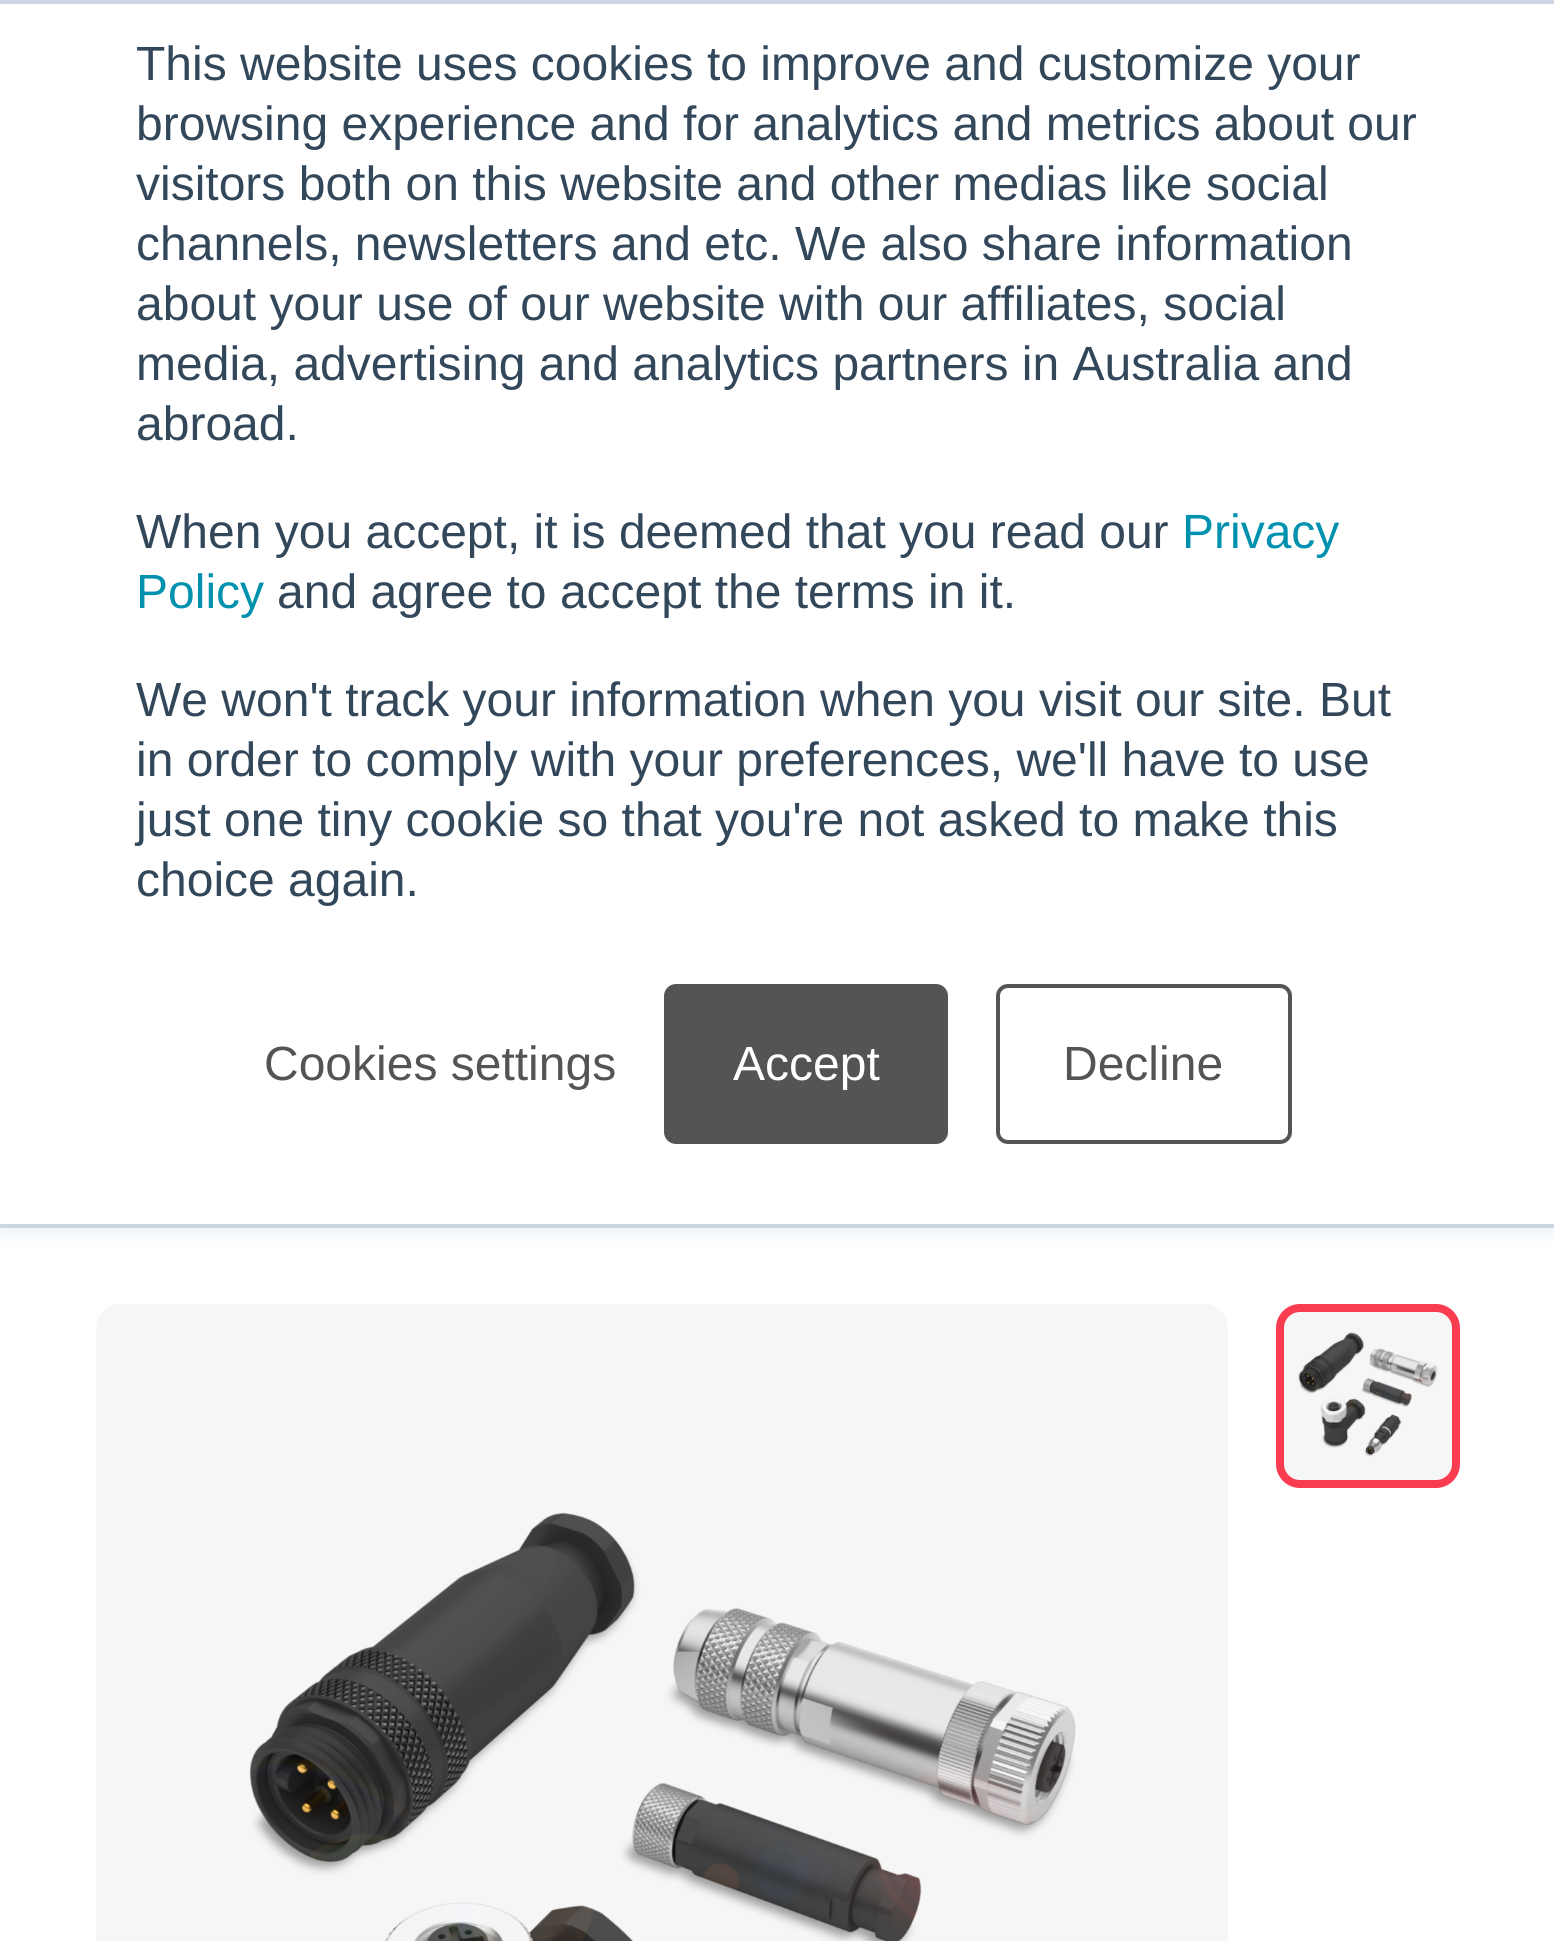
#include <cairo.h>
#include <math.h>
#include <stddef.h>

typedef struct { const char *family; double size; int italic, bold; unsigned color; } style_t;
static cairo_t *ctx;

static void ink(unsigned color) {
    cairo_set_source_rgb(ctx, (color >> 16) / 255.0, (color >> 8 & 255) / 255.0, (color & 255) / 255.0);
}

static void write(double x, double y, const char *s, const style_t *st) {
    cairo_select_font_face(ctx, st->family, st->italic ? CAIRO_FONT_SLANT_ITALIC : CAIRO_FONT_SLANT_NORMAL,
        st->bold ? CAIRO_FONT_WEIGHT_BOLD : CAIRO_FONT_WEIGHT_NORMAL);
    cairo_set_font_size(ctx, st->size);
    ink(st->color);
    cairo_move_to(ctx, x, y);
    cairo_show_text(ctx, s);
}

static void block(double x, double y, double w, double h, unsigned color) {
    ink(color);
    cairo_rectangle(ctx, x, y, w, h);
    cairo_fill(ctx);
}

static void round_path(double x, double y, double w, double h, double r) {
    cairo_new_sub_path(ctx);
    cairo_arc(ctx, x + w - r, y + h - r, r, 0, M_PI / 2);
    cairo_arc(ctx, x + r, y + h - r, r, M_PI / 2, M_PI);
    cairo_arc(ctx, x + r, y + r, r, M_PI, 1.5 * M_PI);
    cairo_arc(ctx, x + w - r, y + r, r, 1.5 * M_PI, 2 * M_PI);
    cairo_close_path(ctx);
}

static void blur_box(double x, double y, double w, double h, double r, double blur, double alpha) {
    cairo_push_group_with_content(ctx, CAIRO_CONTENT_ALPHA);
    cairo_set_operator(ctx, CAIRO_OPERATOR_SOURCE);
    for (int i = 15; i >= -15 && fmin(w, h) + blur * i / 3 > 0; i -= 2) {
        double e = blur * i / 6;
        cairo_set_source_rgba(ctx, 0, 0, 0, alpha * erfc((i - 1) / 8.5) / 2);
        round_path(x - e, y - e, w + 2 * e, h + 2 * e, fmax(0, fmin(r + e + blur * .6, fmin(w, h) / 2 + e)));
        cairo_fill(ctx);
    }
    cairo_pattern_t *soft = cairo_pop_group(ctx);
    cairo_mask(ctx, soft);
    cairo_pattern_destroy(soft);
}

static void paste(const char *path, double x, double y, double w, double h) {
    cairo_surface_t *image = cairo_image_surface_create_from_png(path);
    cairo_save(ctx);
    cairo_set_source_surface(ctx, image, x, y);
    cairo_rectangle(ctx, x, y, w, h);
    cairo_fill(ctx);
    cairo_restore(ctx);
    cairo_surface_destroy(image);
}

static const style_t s1 = {"Liberation Sans", 48, 0, 0, 0x33475b};
static const style_t s2 = {"Liberation Sans", 48, 0, 0, 0x0091ae};
static const style_t s3 = {"Liberation Sans", 48, 0, 0, 0x545454};
static const style_t s4 = {"Liberation Sans", 48, 0, 0, 0xffffff};

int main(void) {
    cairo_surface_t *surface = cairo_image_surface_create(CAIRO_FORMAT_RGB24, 1554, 1941);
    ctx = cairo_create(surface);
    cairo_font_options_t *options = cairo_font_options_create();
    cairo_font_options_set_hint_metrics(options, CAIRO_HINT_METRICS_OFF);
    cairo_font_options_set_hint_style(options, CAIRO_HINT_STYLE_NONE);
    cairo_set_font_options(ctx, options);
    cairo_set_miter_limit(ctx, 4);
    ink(0xffffff);
    cairo_paint(ctx);
    ink(0xeaf0f6);
    blur_box(0, 4, 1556, 1228, 0, 10, 1);
    block(0, 4, 1554, 1220, 0xffffff);
    block(0, 0, 1554, 4, 0xcbd6e2);
    block(0, 1224, 1554, 4, 0xcbd6e2);
    write(136, 80, "This website uses cookies to improve and customize your", &s1);
    write(136, 140, "browsing experience and for analytics and metrics about our", &s1);
    write(136, 200, "visitors both on this website and other medias like social", &s1);
    write(136, 260, "channels, newsletters and etc. We also share information", &s1);
    write(136, 320, "about your use of our website with our affiliates, social", &s1);
    write(136, 380, "media, advertising and analytics partners in Australia and", &s1);
    write(136, 440, "abroad.", &s1);
    write(136, 548, "When you accept, it is deemed that you read our", &s1);
    write(1182, 548, "Privacy", &s2);
    write(136, 608, "Policy", &s2);
    write(277, 608, "and agree to accept the terms in it.", &s1);
    write(136, 716, "We won't track your information when you visit our site. But", &s1);
    write(136, 776, "in order to comply with your preferences, we'll have to use", &s1);
    write(136, 836, "just one tiny cookie so that you're not asked to make this", &s1);
    write(136, 896, "choice again.", &s1);
    write(264, 1080, "Cookies settings", &s3);
    round_path(666, 986, 280, 156, 10);
    cairo_fill_preserve(ctx);
    cairo_set_line_width(ctx, 4);
    cairo_stroke(ctx);
    write(733, 1080, "Accept", &s4);
    round_path(998, 986, 292, 156, 10);
    ink(0x545454);
    cairo_stroke(ctx);
    write(1063, 1080, "Decline", &s3);
    ink(0xf6f6f6);
    round_path(96, 1304, 1132, 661, 24);
    cairo_fill(ctx);
    paste("pic1.png", 249, 1512, 827, 429);
    round_path(1280, 1308, 176, 176, 20);
    cairo_fill_preserve(ctx);
    ink(0xf93c4f);
    cairo_set_line_width(ctx, 8);
    cairo_stroke(ctx);
    paste("pic2.png", 1298, 1332, 140, 125);
    cairo_surface_write_to_png(surface, "screenshot.png");
    cairo_font_options_destroy(options);
    cairo_destroy(ctx);
    cairo_surface_destroy(surface);
    return 0;
}
